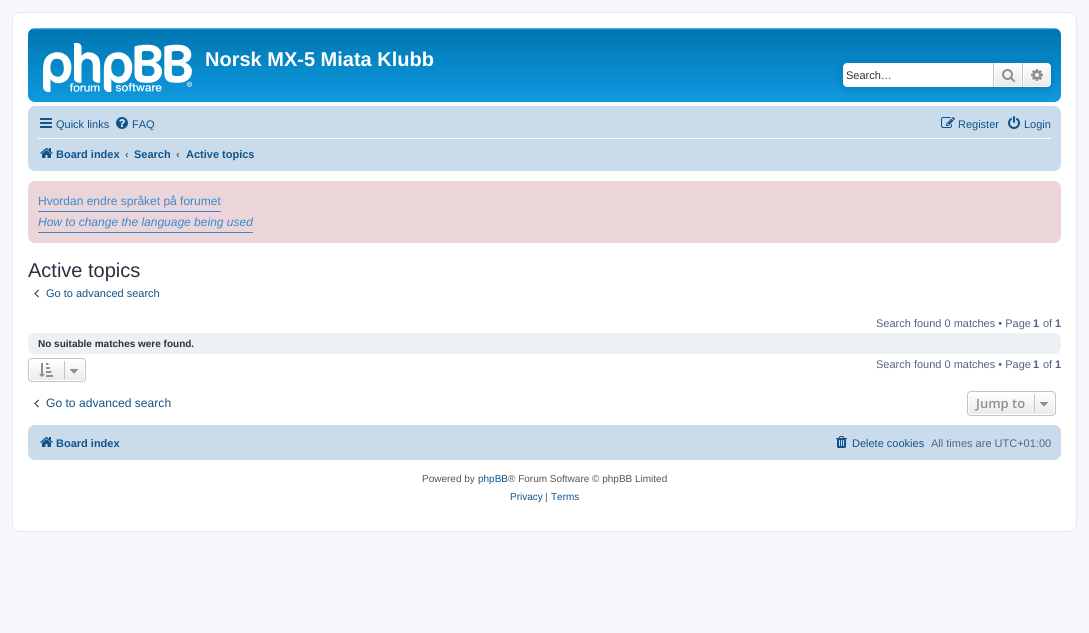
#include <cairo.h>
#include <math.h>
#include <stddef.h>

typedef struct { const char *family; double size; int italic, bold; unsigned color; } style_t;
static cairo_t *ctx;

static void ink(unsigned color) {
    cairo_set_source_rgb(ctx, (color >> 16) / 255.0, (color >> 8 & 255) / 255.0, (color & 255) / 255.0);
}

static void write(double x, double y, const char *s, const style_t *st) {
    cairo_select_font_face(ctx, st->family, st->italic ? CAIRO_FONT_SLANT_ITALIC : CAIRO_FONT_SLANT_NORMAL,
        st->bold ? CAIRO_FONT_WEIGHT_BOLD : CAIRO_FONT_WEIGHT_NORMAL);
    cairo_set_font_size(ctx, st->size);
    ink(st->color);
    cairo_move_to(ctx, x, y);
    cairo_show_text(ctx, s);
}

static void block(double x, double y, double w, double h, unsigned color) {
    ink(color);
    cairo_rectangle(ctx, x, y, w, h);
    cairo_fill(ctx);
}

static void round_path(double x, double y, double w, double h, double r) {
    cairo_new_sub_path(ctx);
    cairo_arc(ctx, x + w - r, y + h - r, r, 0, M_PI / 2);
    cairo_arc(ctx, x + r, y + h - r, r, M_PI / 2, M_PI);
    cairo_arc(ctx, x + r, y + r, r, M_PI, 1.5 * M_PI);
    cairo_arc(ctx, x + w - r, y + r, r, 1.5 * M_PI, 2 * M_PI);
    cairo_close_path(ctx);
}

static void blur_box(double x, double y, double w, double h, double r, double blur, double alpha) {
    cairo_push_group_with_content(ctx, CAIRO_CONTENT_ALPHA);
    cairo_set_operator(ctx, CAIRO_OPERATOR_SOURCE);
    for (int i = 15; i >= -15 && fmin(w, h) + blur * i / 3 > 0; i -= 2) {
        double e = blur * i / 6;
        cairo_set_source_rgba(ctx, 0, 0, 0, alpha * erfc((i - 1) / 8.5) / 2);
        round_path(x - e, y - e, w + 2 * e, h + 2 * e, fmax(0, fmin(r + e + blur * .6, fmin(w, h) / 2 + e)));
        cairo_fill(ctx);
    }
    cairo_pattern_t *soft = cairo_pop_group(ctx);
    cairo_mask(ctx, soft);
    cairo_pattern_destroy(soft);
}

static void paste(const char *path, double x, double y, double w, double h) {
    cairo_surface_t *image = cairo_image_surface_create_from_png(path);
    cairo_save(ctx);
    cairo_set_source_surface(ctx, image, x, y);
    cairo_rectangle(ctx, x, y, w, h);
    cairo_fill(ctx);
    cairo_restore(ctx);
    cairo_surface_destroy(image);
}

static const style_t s1 = {"Liberation Sans", 20, 0, 1, 0xffffff};
static const style_t s2 = {"Liberation Sans", 11, 0, 0, 0x333333};
static const style_t s3 = {"Liberation Sans", 11, 0, 0, 0x105289};
static const style_t s4 = {"Liberation Sans", 11, 0, 1, 0x105289};
static const style_t s5 = {"Liberation Sans", 11, 0, 1, 0x536482};
static const style_t s6 = {"Liberation Sans", 12, 0, 0, 0x368ad2};
static const style_t s7 = {"Liberation Sans", 12, 1, 0, 0x368ad2};
static const style_t s8 = {"Liberation Sans", 20, 0, 0, 0x28313f};
static const style_t s9 = {"Liberation Sans", 11, 0, 0, 0x536482};
static const style_t s10 = {"Liberation Sans", 10, 0, 1, 0x28313f};
static const style_t s11 = {"Liberation Sans", 12.1, 0, 0, 0x105289};
static const style_t s12 = {"Open Sans SemiBold", 13, 0, 0, 0x8f8f8f};
static const style_t s13 = {"Liberation Sans", 10, 0, 0, 0x555555};
static const style_t s14 = {"Liberation Sans", 10, 0, 0, 0x105289};

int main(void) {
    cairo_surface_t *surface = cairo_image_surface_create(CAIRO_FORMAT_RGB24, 1089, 633);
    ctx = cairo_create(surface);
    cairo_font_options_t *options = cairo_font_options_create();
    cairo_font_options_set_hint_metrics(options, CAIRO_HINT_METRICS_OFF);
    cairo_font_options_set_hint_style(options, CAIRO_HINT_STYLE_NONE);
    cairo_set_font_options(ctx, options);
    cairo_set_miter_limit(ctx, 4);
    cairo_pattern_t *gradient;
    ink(0xf5f7fa);
    cairo_paint(ctx);
    ink(0xffffff);
    round_path(12.5, 12.5, 1064, 519, 7.5);
    cairo_fill_preserve(ctx);
    ink(0xe6e9ed);
    cairo_set_line_width(ctx, 1);
    cairo_stroke(ctx);
    gradient = cairo_pattern_create_linear(545, 28, 545, 120);
    cairo_pattern_add_color_stop_rgba(gradient, 0, 0.416, 0.808, 1, 1);
    cairo_pattern_add_color_stop_rgba(gradient, 0.02, 0, 0.463, 0.694, 1);
    cairo_pattern_add_color_stop_rgba(gradient, 1, 0.071, 0.639, 0.922, 1);
    cairo_set_source(ctx, gradient);
    cairo_pattern_destroy(gradient);
    round_path(28, 28, 1033, 74, 7);
    cairo_fill(ctx);
    paste("pic1.png", 43, 43, 149, 49);
    write(205, 66, "Norsk MX-5 Miata Klubb", &s1);
    ink(0x0075b0);
    blur_box(843, 63, 208, 24, 4, 5, 1);
    ink(0xffffff);
    cairo_new_path(ctx);
    cairo_move_to(ctx, 847, 63);
    cairo_line_to(ctx, 993, 63);
    cairo_line_to(ctx, 993, 87);
    cairo_line_to(ctx, 847, 87);
    cairo_curve_to(ctx, 845, 87, 843, 85, 843, 83);
    cairo_line_to(ctx, 843, 67);
    cairo_curve_to(ctx, 843, 65, 845, 63, 847, 63);
    cairo_close_path(ctx);
    cairo_fill(ctx);
    write(846, 79, "Search…", &s2);
    gradient = cairo_pattern_create_linear(1008, 63, 1008, 87);
    cairo_pattern_add_color_stop_rgba(gradient, 0, 1, 1, 1, 1);
    cairo_pattern_add_color_stop_rgba(gradient, 1, 0.914, 0.914, 0.914, 1);
    cairo_set_source(ctx, gradient);
    cairo_pattern_destroy(gradient);
    cairo_rectangle(ctx, 995, 64, 26, 22);
    cairo_fill(ctx);
    cairo_rectangle(ctx, 994.5, 63.5, 27, 23);
    ink(0xffffff);
    cairo_stroke(ctx);
    block(1022, 63, 1, 24, 0xc7c3bf);
    block(993, 63, 1, 24, 0xc7c3bf);
    paste("pic2.png", 1002, 69, 13, 13);
    gradient = cairo_pattern_create_linear(1037, 63, 1037, 87);
    cairo_pattern_add_color_stop_rgba(gradient, 0, 1, 1, 1, 1);
    cairo_pattern_add_color_stop_rgba(gradient, 1, 0.914, 0.914, 0.914, 1);
    cairo_set_source(ctx, gradient);
    cairo_pattern_destroy(gradient);
    cairo_new_path(ctx);
    cairo_move_to(ctx, 1023.5, 63.5);
    cairo_line_to(ctx, 1047, 63.5);
    cairo_curve_to(ctx, 1049, 63.5, 1050.5, 65, 1050.5, 67);
    cairo_line_to(ctx, 1050.5, 83);
    cairo_curve_to(ctx, 1050.5, 85, 1049, 86.5, 1047, 86.5);
    cairo_line_to(ctx, 1023.5, 86.5);
    cairo_close_path(ctx);
    cairo_fill_preserve(ctx);
    ink(0xffffff);
    cairo_stroke(ctx);
    paste("pic3.png", 1031, 69, 12, 12);
    ink(0xcadceb);
    round_path(28, 106, 1033, 65, 7);
    cairo_fill(ctx);
    paste("pic4.png", 40, 118, 12, 10);
    write(56, 128, "Quick links", &s3);
    paste("pic5.png", 116, 117, 12, 12);
    write(132, 128, "FAQ", &s3);
    paste("pic6.png", 941, 117, 14, 11);
    write(958, 128, "Register", &s3);
    paste("pic7.png", 1008, 116, 12, 13);
    write(1024, 128, "Login", &s3);
    block(38, 138, 1013, 1, 0xffffff);
    paste("pic8.png", 40, 148, 13, 10);
    write(56, 158, "Board index", &s4);
    write(125, 158, "‹", &s5);
    write(134, 158, "Search", &s4);
    write(176, 158, "‹", &s5);
    write(186, 158, "Active topics", &s4);
    ink(0xecd5d8);
    round_path(28, 181, 1033, 62, 7);
    cairo_fill(ctx);
    block(38, 211, 183, 1, 0x368ad2);
    write(38, 205, "Hvordan endre språket på forumet", &s6);
    block(38, 232, 215, 1, 0x368ad2);
    write(38, 226, "How to change the language being used", &s7);
    write(28, 277, "Active topics", &s8);
    paste("pic9.png", 34, 289, 5, 9);
    write(46, 297, "Go to advanced search", &s3);
    write(876, 327, "Search found 0 matches • Page", &s9);
    write(1033, 327, "1", &s5);
    write(1043, 327, "of", &s9);
    write(1055, 327, "1", &s5);
    ink(0xecf1f3);
    round_path(28, 333, 1033, 21, 7);
    cairo_fill(ctx);
    write(38, 347, "No suitable matches were found.", &s10);
    cairo_save(ctx);
    round_path(28, 358, 58, 24, 4);
    cairo_clip(ctx);
    gradient = cairo_pattern_create_linear(57, 359, 57, 381);
    cairo_pattern_add_color_stop_rgba(gradient, 0, 1, 1, 1, 1);
    cairo_pattern_add_color_stop_rgba(gradient, 1, 0.914, 0.914, 0.914, 1);
    cairo_set_source(ctx, gradient);
    cairo_pattern_destroy(gradient);
    cairo_rectangle(ctx, 28, 359, 58, 22);
    cairo_fill(ctx);
    cairo_restore(ctx);
    round_path(29.5, 359.5, 55, 21, 2.5);
    ink(0xffffff);
    cairo_stroke(ctx);
    round_path(28.5, 358.5, 57, 23, 3.5);
    ink(0xc7c3bf);
    cairo_stroke(ctx);
    paste("pic10.png", 39, 363, 14, 14);
    block(64, 361, 1, 18, 0xc7c3bf);
    paste("pic11.png", 70, 369, 8, 5);
    write(876, 368, "Search found 0 matches • Page", &s9);
    write(1033, 368, "1", &s5);
    write(1043, 368, "of", &s9);
    write(1055, 368, "1", &s5);
    paste("pic9.png", 34, 399, 5, 9);
    write(46, 407, "Go to advanced search", &s11);
    cairo_save(ctx);
    round_path(967, 391, 89, 25, 4);
    cairo_clip(ctx);
    gradient = cairo_pattern_create_linear(1012, 392, 1012, 415);
    cairo_pattern_add_color_stop_rgba(gradient, 0, 1, 1, 1, 1);
    cairo_pattern_add_color_stop_rgba(gradient, 1, 0.914, 0.914, 0.914, 1);
    cairo_set_source(ctx, gradient);
    cairo_pattern_destroy(gradient);
    cairo_rectangle(ctx, 967, 392, 89, 23);
    cairo_fill(ctx);
    cairo_restore(ctx);
    round_path(968.5, 392.5, 86, 22, 2.5);
    ink(0xffffff);
    cairo_stroke(ctx);
    round_path(967.5, 391.5, 88, 24, 3.5);
    ink(0xc7c3bf);
    cairo_stroke(ctx);
    write(976, 408, "Jump to", &s12);
    block(1034, 394, 1, 18, 0xc7c3bf);
    paste("pic11.png", 1040, 402, 8, 5);
    ink(0xcadceb);
    round_path(28, 425, 1033, 35, 7);
    cairo_fill(ctx);
    paste("pic8.png", 40, 437, 13, 10);
    write(56, 447, "Board index", &s4);
    paste("pic12.png", 836, 436, 11, 12);
    write(852, 447, "Delete cookies", &s3);
    write(931, 447, "All times are UTC+01:00", &s9);
    write(422, 482, "Powered by", &s13);
    write(478, 482, "phpBB", &s14);
    write(508, 482, "® Forum Software © phpBB Limited", &s13);
    write(510, 500, "Privacy", &s14);
    write(545, 500, "|", &s13);
    write(551, 500, "Terms", &s14);
    cairo_surface_write_to_png(surface, "screenshot.png");
    cairo_font_options_destroy(options);
    cairo_destroy(ctx);
    cairo_surface_destroy(surface);
    return 0;
}
